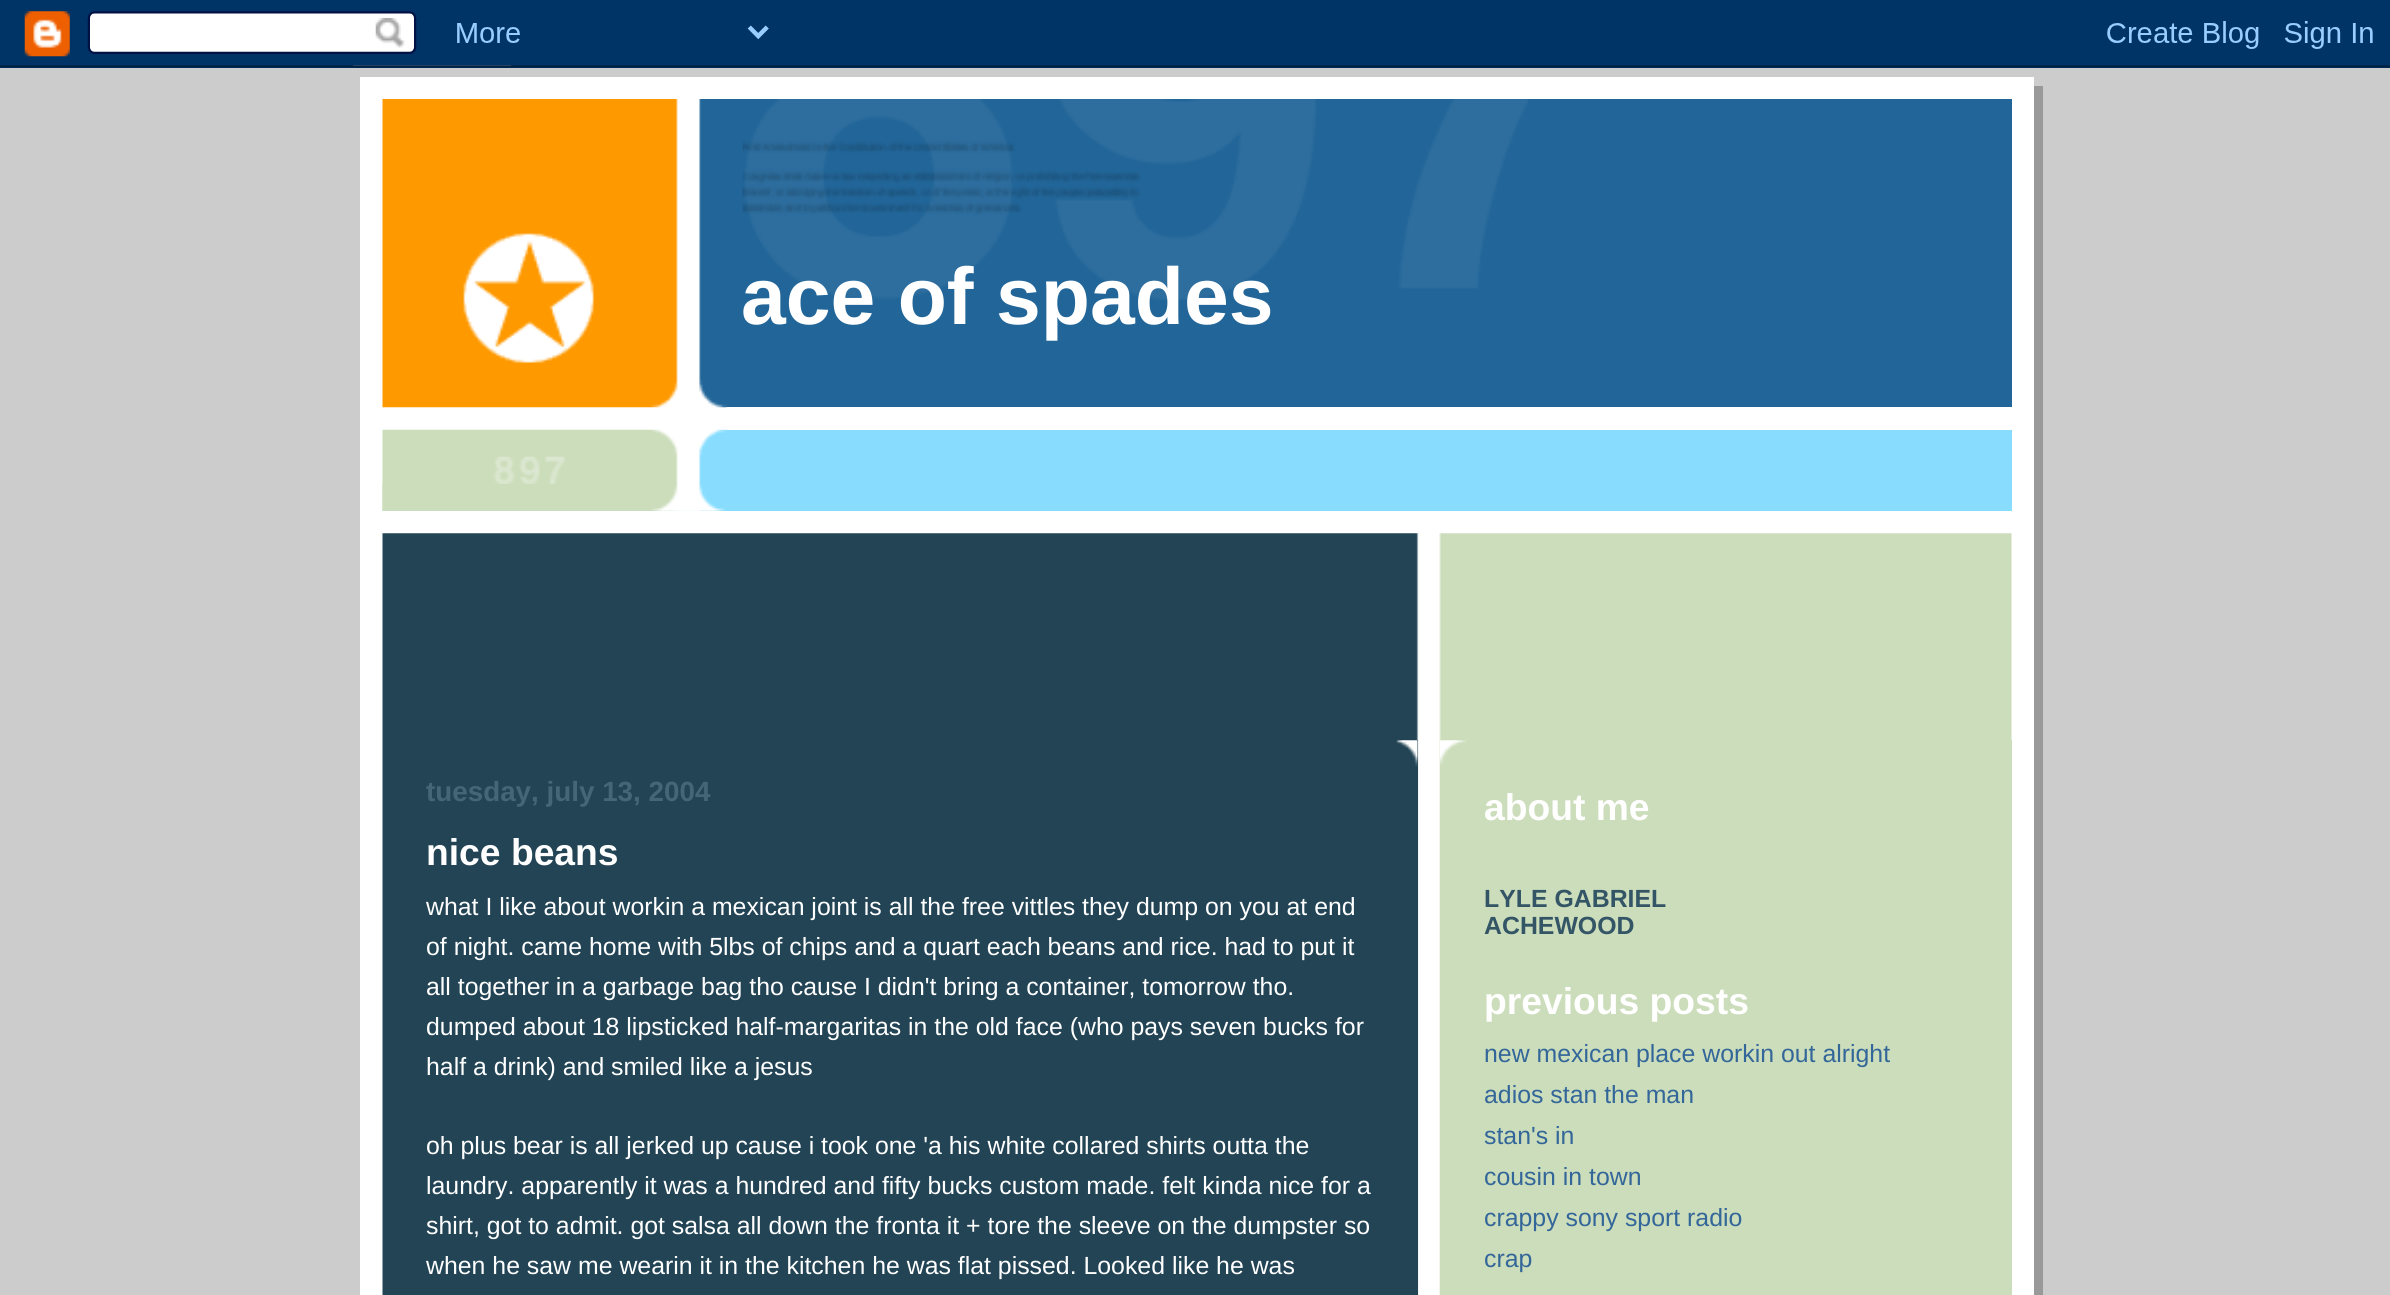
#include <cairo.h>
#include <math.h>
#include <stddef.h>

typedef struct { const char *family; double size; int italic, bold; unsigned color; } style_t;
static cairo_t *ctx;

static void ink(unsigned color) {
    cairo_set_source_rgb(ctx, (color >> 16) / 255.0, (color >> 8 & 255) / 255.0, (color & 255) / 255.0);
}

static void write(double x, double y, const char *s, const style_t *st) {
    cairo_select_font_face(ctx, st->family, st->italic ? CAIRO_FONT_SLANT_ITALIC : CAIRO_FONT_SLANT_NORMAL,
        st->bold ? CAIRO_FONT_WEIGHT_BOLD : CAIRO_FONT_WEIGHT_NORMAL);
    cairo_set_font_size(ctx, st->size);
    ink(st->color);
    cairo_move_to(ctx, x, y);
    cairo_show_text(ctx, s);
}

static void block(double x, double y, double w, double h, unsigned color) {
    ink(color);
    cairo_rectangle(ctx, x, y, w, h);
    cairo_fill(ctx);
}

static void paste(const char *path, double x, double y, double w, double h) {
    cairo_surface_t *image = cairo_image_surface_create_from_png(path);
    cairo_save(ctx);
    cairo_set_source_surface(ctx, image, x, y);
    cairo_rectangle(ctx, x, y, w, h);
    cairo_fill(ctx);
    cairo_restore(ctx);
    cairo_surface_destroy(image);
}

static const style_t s1 = {"Liberation Sans", 80.5, 0, 1, 0xffffff};
static const style_t s2 = {"Liberation Sans", 27.8, 0, 1, 0x446677};
static const style_t s3 = {"Liberation Sans", 37.25, 0, 1, 0xffffff};
static const style_t s4 = {"Liberation Sans", 24.85, 0, 0, 0xffffff};
static const style_t s5 = {"Liberation Sans", 24.85, 0, 1, 0x335566};
static const style_t s6 = {"Liberation Sans", 24.85, 0, 0, 0x336699};

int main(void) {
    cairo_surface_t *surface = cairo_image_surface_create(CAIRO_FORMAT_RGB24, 2390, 1295);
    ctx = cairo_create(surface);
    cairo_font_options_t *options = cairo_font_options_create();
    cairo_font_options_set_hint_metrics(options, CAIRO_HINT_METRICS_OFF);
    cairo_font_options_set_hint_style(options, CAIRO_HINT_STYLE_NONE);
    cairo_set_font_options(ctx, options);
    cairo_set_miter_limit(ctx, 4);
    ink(0xcccccc);
    cairo_paint(ctx);
    paste("pic1.png", 0, 0, 2390, 68);
    block(2034, 86, 9, 1209, 0x999999);
    block(360, 77, 1674, 1218, 0xffffff);
    block(699, 99, 1313, 308, 0x226699);
    paste("pic2.png", 382, 99, 345, 309);
    paste("pic3.png", 742, 99, 786, 201);
    write(741, 324, "ace of spades", &s1);
    block(383, 430, 1629, 81, 0x88ddff);
    paste("pic4.png", 382, 429, 345, 82);
    paste("pic5.png", 382, 484, 344, 27);
    paste("pic6.png", 493, 456, 73, 28);
    paste("pic7.png", 382, 533, 1630, 762);
    block(1416, 740, 2, 555, 0x224455);
    paste("pic8.png", 1396, 740, 22, 27);
    write(426, 801, "tuesday, july 13, 2004", &s2);
    write(426, 865, "nice beans", &s3);
    write(426, 915, "what I like about workin a mexican joint is all the free vittles they dump on you at end", &s4);
    write(426, 955, "of night. came home with 5lbs of chips and a quart each beans and rice. had to put it", &s4);
    write(426, 995, "all together in a garbage bag tho cause I didn't bring a container, tomorrow tho.", &s4);
    write(426, 1035, "dumped about 18 lipsticked half-margaritas in the old face (who pays seven bucks for", &s4);
    write(426, 1075, "half a drink) and smiled like a jesus", &s4);
    write(426, 1154, "oh plus bear is all jerked up cause i took one 'a his white collared shirts outta the", &s4);
    write(426, 1194, "laundry. apparently it was a hundred and fifty bucks custom made. felt kinda nice for a", &s4);
    write(426, 1234, "shirt, got to admit. got salsa all down the fronta it + tore the sleeve on the dumpster so", &s4);
    write(426, 1274, "when he saw me wearin it in the kitchen he was flat pissed. Looked like he was", &s4);
    block(1440, 740, 572, 555, 0xccddbb);
    paste("pic9.png", 1440, 740, 27, 26);
    write(1484, 820, "about me", &s3);
    write(1484, 907, "LYLE GABRIEL", &s5);
    write(1484, 934, "ACHEWOOD", &s5);
    write(1484, 1014, "previous posts", &s3);
    write(1484, 1062, "new mexican place workin out alright", &s6);
    write(1484, 1103, "adios stan the man", &s6);
    write(1484, 1144, "stan's in", &s6);
    write(1484, 1185, "cousin in town", &s6);
    write(1484, 1226, "crappy sony sport radio", &s6);
    write(1484, 1267, "crap", &s6);
    cairo_surface_write_to_png(surface, "screenshot.png");
    cairo_font_options_destroy(options);
    cairo_destroy(ctx);
    cairo_surface_destroy(surface);
    return 0;
}
